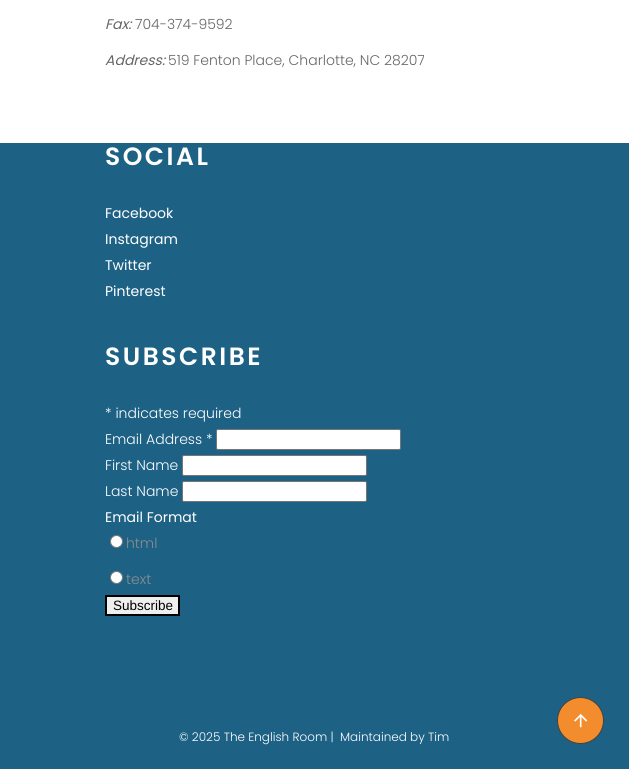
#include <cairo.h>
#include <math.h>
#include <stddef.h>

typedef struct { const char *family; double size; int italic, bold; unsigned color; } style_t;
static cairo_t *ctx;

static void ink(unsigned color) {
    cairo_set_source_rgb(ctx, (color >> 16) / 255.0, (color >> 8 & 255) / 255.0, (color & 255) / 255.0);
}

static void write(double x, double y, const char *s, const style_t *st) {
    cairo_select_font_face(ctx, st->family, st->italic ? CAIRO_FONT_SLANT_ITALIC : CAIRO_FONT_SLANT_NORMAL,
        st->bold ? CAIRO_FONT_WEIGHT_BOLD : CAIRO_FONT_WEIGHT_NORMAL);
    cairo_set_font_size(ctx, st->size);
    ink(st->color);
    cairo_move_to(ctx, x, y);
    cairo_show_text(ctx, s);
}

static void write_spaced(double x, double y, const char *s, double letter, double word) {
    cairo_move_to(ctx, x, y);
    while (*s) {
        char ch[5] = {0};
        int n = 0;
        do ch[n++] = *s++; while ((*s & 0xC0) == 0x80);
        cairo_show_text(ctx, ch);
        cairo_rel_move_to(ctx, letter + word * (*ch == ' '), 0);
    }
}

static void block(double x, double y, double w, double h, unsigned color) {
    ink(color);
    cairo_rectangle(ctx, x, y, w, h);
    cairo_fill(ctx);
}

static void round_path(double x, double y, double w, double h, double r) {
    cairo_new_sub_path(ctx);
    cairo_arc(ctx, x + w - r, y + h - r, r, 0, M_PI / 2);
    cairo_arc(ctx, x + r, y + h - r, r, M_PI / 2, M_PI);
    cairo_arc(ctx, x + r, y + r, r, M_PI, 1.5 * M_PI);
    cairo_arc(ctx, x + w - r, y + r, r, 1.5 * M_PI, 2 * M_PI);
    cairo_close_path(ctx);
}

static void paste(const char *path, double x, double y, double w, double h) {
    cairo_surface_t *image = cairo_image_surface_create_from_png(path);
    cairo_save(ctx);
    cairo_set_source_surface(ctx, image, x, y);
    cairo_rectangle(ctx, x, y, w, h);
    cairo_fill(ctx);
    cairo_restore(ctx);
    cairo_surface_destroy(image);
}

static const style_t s1 = {"Poppins", 14, 1, 0, 0x666666};
static const style_t s2 = {"Poppins Light", 14, 0, 0, 0x666666};
static const style_t s3 = {"Poppins", 14, 0, 0, 0xffffff};
static const style_t s4 = {"Poppins Light", 14, 0, 0, 0xffffff};
static const style_t s5 = {"Poppins Light", 14, 0, 0, 0x8d8d8d};
static const style_t s6 = {"Liberation Sans", 13.5, 0, 0, 0x000000};
static const style_t s7 = {"Poppins Light", 12, 0, 0, 0xffffff};

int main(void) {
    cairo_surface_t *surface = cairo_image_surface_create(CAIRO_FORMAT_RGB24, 629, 769);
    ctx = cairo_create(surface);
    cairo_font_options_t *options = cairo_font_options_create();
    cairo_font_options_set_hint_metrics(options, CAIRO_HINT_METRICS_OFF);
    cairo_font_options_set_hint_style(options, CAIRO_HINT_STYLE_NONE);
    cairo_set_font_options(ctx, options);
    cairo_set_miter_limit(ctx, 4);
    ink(0x1d6185);
    cairo_paint(ctx);
    block(0, 0, 629, 143, 0xffffff);
    write(105, 29, "Fax:", &s1);
    write(135, 29, "704-374-9592", &s2);
    write(105, 65, "Address:", &s1);
    write(168, 65, "519 Fenton Place, Charlotte, NC 28207", &s2);
    cairo_select_font_face(ctx, "Poppins SemiBold", CAIRO_FONT_SLANT_NORMAL, CAIRO_FONT_WEIGHT_NORMAL);
    cairo_set_font_size(ctx, 25);
    ink(0xffffff);
    write_spaced(105, 165, "SOCIAL", 2.5, 0);
    write(105, 218, "Facebook", &s3);
    write(105, 244, "Instagram", &s3);
    write(105, 270, "Twitter", &s3);
    write(105, 296, "Pinterest", &s3);
    cairo_select_font_face(ctx, "Poppins SemiBold", CAIRO_FONT_SLANT_NORMAL, CAIRO_FONT_WEIGHT_NORMAL);
    cairo_set_font_size(ctx, 25);
    write_spaced(105, 365, "SUBSCRIBE", 2.5, 0);
    write(105, 418, "* indicates required", &s4);
    write(105, 444, "Email Address *", &s4);
    round_path(216.5, 429.5, 184, 20, 1.5);
    cairo_fill_preserve(ctx);
    ink(0x767676);
    cairo_set_line_width(ctx, 1);
    cairo_stroke(ctx);
    write(105, 470, "First Name", &s4);
    round_path(182.5, 455.5, 184, 20, 1.5);
    cairo_fill_preserve(ctx);
    ink(0x767676);
    cairo_stroke(ctx);
    write(105, 496, "Last Name", &s4);
    round_path(182.5, 481.5, 184, 20, 1.5);
    cairo_fill_preserve(ctx);
    ink(0x767676);
    cairo_stroke(ctx);
    write(105, 522, "Email Format", &s3);
    cairo_new_path(ctx);
    cairo_arc(ctx, 116.5, 541.5, 6, 0, 2 * M_PI);
    cairo_fill_preserve(ctx);
    ink(0x767676);
    cairo_stroke(ctx);
    write(126, 548, "html", &s5);
    ink(0xffffff);
    cairo_new_path(ctx);
    cairo_arc(ctx, 116.5, 577.5, 6, 0, 2 * M_PI);
    cairo_fill_preserve(ctx);
    ink(0x767676);
    cairo_stroke(ctx);
    write(126, 584, "text", &s5);
    ink(0xefefef);
    cairo_rectangle(ctx, 106, 596, 73, 19);
    cairo_fill_preserve(ctx);
    ink(0x000000);
    cairo_set_line_width(ctx, 2);
    cairo_stroke(ctx);
    write(113, 610, "Subscribe", &s6);
    write(179, 741, "© 2025 The English Room |", &s7);
    write(340, 741, "Maintained by Tim", &s7);
    ink(0xf28c2d);
    cairo_new_path(ctx);
    cairo_arc(ctx, 580.5, 720.5, 23, 0, 2 * M_PI);
    cairo_fill_preserve(ctx);
    ink(0x414141);
    cairo_set_line_width(ctx, 1);
    cairo_stroke(ctx);
    paste("pic1.png", 574, 713, 14, 15);
    cairo_surface_write_to_png(surface, "screenshot.png");
    cairo_font_options_destroy(options);
    cairo_destroy(ctx);
    cairo_surface_destroy(surface);
    return 0;
}
